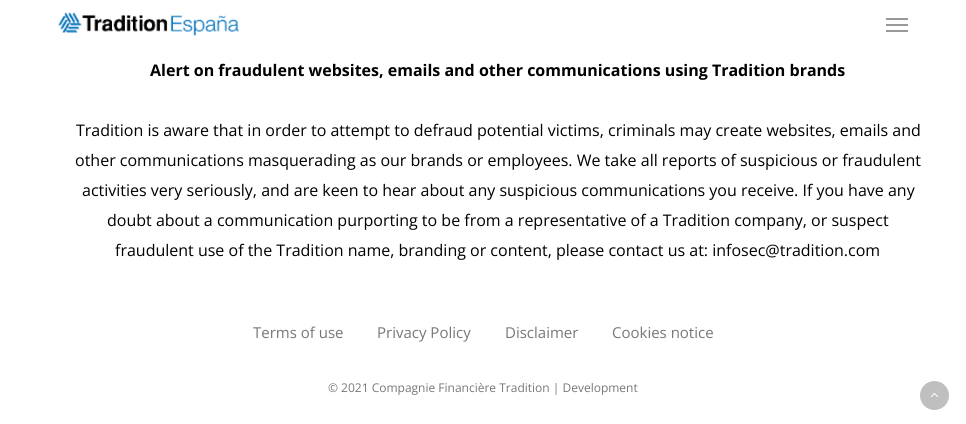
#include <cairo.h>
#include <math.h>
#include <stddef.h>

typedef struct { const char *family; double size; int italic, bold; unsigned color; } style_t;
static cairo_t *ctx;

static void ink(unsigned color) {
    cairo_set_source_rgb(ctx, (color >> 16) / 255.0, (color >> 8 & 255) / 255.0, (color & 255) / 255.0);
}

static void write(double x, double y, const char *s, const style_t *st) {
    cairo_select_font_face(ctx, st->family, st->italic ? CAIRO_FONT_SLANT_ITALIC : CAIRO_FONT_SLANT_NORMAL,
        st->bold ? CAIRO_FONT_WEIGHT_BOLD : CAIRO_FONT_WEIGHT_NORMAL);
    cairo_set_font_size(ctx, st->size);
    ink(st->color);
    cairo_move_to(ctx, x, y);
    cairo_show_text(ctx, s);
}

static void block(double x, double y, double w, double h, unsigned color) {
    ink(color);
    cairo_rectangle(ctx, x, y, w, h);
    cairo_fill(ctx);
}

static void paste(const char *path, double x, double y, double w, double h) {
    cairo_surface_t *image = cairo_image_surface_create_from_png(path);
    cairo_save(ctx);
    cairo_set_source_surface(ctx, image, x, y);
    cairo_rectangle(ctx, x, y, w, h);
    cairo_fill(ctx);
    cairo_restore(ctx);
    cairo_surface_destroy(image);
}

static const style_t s1 = {"Open Sans", 16, 0, 1, 0x000000};
static const style_t s2 = {"Open Sans", 16, 0, 0, 0x000000};
static const style_t s3 = {"Open Sans", 15, 0, 0, 0x777777};
static const style_t s4 = {"Open Sans", 12, 0, 0, 0x777777};

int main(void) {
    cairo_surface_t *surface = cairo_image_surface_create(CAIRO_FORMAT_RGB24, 966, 424);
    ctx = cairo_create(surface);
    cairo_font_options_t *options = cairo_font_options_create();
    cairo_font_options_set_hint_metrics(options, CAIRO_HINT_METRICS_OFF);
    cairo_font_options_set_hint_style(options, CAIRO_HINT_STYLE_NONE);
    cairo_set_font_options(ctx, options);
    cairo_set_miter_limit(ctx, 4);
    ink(0xffffff);
    cairo_paint(ctx);
    paste("pic1.png", 58, 12, 182, 24);
    block(886, 18, 22, 2, 0x999999);
    block(886, 30, 22, 2, 0x999999);
    block(886, 24, 22, 2, 0x999999);
    write(150, 76, "Alert on fraudulent websites, emails and other communications using Tradition brands", &s1);
    write(76, 136, "Tradition is aware that in order to attempt to defraud potential victims, criminals may create websites, emails and", &s2);
    write(75, 166, "other communications masquerading as our brands or employees. We take all reports of suspicious or fraudulent", &s2);
    write(82, 196, "activities very seriously, and are keen to hear about any suspicious communications you receive. If you have any", &s2);
    write(107, 226, "doubt about a communication purporting to be from a representative of a Tradition company, or suspect", &s2);
    write(115, 256, "fraudulent use of the Tradition name, branding or content, please contact us at: infosec@tradition.com", &s2);
    write(253, 338, "Terms of use", &s3);
    write(377, 338, "Privacy Policy", &s3);
    write(505, 338, "Disclaimer", &s3);
    write(612, 338, "Cookies notice", &s3);
    write(328, 392, "© 2021 Compagnie Financière Tradition | Development", &s4);
    ink(0xbfbfbf);
    cairo_new_path(ctx);
    cairo_arc(ctx, 934.5, 395.5, 14.5, 0, 2 * M_PI);
    cairo_fill(ctx);
    paste("pic2.png", 930, 392, 9, 6);
    cairo_surface_write_to_png(surface, "screenshot.png");
    cairo_font_options_destroy(options);
    cairo_destroy(ctx);
    cairo_surface_destroy(surface);
    return 0;
}
